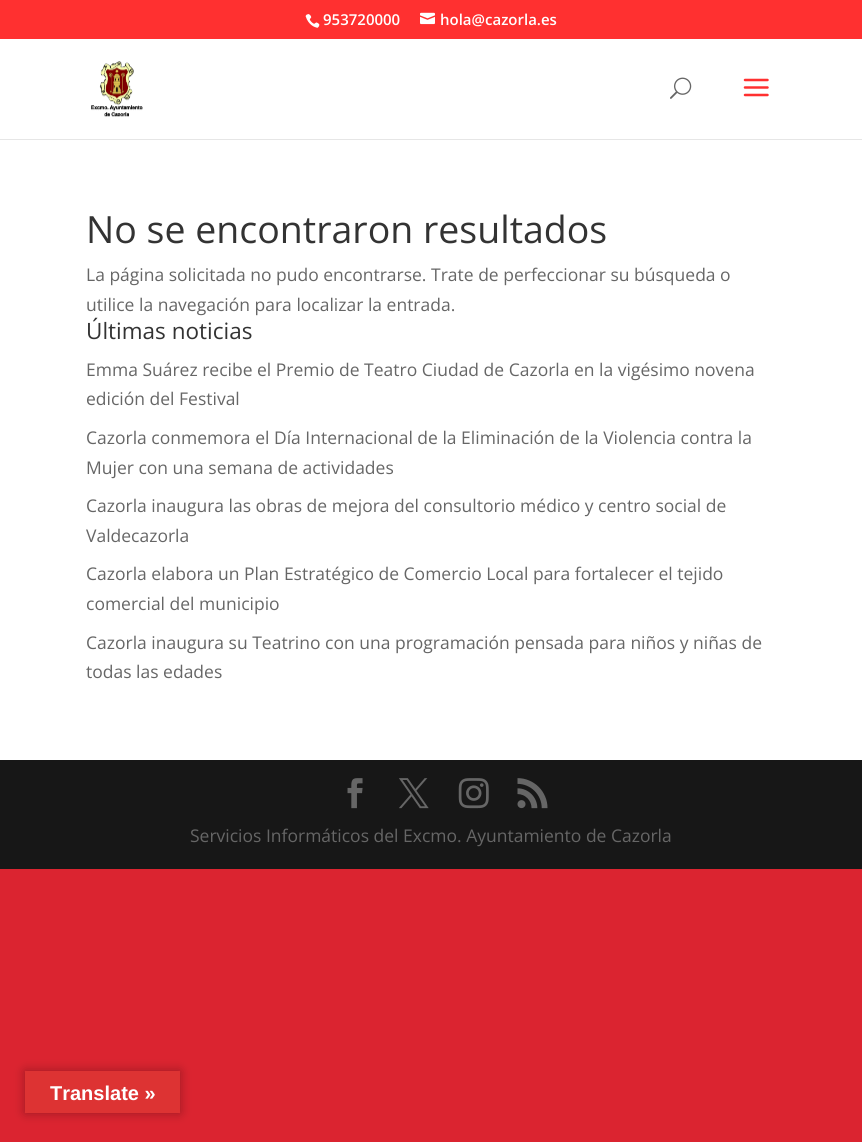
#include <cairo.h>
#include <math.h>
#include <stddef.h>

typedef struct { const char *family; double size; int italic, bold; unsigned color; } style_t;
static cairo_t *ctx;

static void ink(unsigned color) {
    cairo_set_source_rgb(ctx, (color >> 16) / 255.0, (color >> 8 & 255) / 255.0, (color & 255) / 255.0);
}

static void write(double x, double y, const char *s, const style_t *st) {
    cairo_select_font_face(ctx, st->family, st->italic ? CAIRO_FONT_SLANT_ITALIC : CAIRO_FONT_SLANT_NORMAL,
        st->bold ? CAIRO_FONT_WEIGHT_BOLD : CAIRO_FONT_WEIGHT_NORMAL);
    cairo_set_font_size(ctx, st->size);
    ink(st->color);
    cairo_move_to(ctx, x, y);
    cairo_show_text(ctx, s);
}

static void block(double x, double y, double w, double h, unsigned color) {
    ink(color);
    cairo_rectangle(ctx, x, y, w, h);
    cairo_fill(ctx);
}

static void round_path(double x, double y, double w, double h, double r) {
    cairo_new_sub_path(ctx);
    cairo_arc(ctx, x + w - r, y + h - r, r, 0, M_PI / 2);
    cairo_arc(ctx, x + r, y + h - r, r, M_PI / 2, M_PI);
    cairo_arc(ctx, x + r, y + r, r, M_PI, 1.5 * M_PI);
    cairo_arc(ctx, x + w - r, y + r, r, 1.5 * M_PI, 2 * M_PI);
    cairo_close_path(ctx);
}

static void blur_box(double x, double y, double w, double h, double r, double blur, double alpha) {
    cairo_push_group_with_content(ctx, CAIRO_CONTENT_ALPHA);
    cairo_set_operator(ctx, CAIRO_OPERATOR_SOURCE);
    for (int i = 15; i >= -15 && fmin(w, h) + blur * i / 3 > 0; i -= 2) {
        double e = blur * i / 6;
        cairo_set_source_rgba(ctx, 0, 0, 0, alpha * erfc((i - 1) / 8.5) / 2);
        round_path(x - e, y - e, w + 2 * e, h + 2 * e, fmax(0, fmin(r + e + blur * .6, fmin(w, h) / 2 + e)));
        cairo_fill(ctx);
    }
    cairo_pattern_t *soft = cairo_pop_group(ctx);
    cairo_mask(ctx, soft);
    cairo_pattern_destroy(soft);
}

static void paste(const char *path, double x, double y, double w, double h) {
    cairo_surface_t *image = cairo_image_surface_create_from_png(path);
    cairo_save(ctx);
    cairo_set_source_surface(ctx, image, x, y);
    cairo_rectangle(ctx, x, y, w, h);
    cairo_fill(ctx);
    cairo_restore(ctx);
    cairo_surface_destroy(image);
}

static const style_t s1 = {"Open Sans SemiBold", 15, 0, 0, 0xffffff};
static const style_t s2 = {"Open Sans", 37.5, 0, 0, 0x333333};
static const style_t s3 = {"Open Sans", 17.5, 0, 0, 0x666666};
static const style_t s4 = {"Open Sans", 22.5, 0, 0, 0x333333};
static const style_t s5 = {"Liberation Sans", 20, 0, 1, 0xffffff};

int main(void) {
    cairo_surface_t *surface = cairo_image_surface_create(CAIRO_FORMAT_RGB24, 862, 1142);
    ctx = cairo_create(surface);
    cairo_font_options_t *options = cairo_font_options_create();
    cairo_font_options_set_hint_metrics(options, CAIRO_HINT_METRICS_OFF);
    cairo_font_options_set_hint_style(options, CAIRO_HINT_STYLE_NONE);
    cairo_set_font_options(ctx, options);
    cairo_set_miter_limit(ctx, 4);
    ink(0xdb2430);
    cairo_paint(ctx);
    block(0, 0, 862, 39, 0xff3030);
    paste("pic1.png", 305, 14, 15, 14);
    write(323, 25, "953720000", &s1);
    paste("pic2.png", 420, 12, 15, 13);
    write(440, 25, "hola@cazorla.es", &s1);
    ink(0xe6e6e6);
    cairo_new_path(ctx);
    cairo_move_to(ctx, 0, 139);
    cairo_line_to(ctx, 0, 140);
    cairo_line_to(ctx, 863, 140);
    cairo_line_to(ctx, 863, 40);
    cairo_line_to(ctx, 862, 40);
    cairo_line_to(ctx, 862, 139);
    cairo_close_path(ctx);
    cairo_fill(ctx);
    block(0, 39, 862, 100, 0xffffff);
    paste("pic3.png", 91, 61, 52, 56);
    paste("pic4.png", 670, 77, 22, 22);
    paste("pic5.png", 743, 78, 26, 19);
    block(0, 140, 862, 620, 0xffffff);
    write(86, 243, "No se encontraron resultados", &s2);
    write(86, 281, "La página solicitada no pudo encontrarse. Trate de perfeccionar su búsqueda o", &s3);
    write(86, 311, "utilice la navegación para localizar la entrada.", &s3);
    write(86, 339, "Últimas noticias", &s4);
    write(86, 376, "Emma Suárez recibe el Premio de Teatro Ciudad de Cazorla en la vigésimo novena", &s3);
    write(86, 405, "edición del Festival", &s3);
    write(86, 444, "Cazorla conmemora el Día Internacional de la Eliminación de la Violencia contra la", &s3);
    write(86, 474, "Mujer con una semana de actividades", &s3);
    write(86, 512, "Cazorla inaugura las obras de mejora del consultorio médico y centro social de", &s3);
    write(86, 542, "Valdecazorla", &s3);
    write(86, 580, "Cazorla elabora un Plan Estratégico de Comercio Local para fortalecer el tejido", &s3);
    write(86, 610, "comercial del municipio", &s3);
    write(86, 649, "Cazorla inaugura su Teatrino con una programación pensada para niños y niñas de", &s3);
    write(86, 678, "todas las edades", &s3);
    block(0, 760, 862, 109, 0x171717);
    paste("pic6.png", 347, 778, 16, 31);
    paste("pic7.png", 399, 778, 30, 31);
    paste("pic8.png", 458, 778, 31, 31);
    paste("pic9.png", 517, 778, 31, 31);
    write(190, 842, "Servicios Informáticos del Excmo. Ayuntamiento de Cazorla", &s3);
    ink(0x000000);
    blur_box(25, 1071, 155, 42, 0, 5.5, 0.3);
    block(25, 1071, 155, 42, 0xdd3333);
    write(50, 1100, "Translate »", &s5);
    cairo_surface_write_to_png(surface, "screenshot.png");
    cairo_font_options_destroy(options);
    cairo_destroy(ctx);
    cairo_surface_destroy(surface);
    return 0;
}
